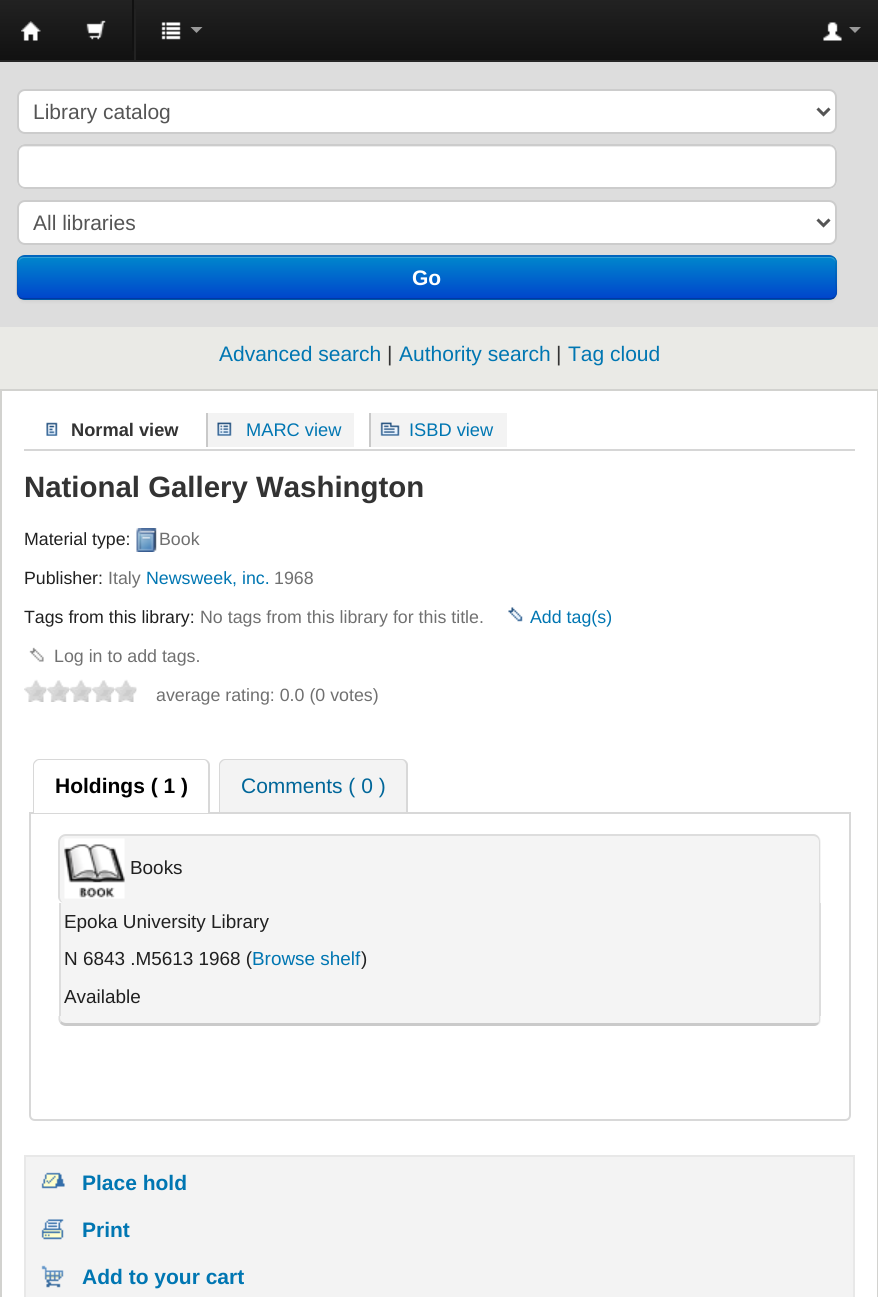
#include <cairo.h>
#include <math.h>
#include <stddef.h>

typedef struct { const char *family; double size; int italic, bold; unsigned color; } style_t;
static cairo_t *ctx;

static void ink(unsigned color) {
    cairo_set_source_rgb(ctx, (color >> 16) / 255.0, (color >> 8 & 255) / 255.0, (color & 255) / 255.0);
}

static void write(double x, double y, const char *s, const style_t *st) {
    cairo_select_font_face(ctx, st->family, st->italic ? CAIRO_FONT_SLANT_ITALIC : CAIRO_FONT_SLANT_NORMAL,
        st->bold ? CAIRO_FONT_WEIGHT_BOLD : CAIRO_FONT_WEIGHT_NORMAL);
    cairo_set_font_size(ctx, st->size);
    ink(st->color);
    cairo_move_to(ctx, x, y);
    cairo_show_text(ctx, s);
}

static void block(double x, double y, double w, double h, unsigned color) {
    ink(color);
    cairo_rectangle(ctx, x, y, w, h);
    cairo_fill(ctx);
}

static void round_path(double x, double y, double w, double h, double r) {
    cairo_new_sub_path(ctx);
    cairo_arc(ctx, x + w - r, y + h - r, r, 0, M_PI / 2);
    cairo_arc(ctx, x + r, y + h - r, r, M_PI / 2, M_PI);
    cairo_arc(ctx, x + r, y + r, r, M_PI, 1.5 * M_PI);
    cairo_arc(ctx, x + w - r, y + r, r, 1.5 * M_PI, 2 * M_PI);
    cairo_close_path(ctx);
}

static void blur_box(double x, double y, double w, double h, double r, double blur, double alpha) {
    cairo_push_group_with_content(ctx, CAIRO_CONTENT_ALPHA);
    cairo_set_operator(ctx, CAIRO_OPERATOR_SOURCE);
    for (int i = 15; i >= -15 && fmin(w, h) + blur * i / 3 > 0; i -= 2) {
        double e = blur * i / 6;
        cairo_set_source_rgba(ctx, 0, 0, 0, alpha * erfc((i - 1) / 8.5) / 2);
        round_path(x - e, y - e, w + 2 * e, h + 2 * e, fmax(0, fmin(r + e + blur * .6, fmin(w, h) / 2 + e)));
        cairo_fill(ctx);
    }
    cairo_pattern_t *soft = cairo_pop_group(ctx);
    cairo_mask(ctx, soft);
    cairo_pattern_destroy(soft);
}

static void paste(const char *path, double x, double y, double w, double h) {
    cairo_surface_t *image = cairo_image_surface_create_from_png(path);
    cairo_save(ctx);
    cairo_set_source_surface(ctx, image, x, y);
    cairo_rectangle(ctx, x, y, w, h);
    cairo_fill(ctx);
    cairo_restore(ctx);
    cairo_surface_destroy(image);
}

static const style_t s1 = {"Liberation Sans", 21, 0, 0, 0x555555};
static const style_t s2 = {"Liberation Sans", 21, 0, 1, 0xffffff};
static const style_t s3 = {"Liberation Sans", 21, 0, 0, 0x0076b2};
static const style_t s4 = {"Liberation Sans", 21, 0, 0, 0x333333};
static const style_t s5 = {"Liberation Sans", 18.25, 0, 1, 0x333333};
static const style_t s6 = {"Liberation Sans", 18.25, 0, 0, 0x0076b2};
static const style_t s7 = {"Liberation Sans", 29.4, 0, 1, 0x333333};
static const style_t s8 = {"Liberation Sans", 17.75, 0, 0, 0x202020};
static const style_t s9 = {"Liberation Sans", 17.8, 0, 0, 0x707070};
static const style_t s10 = {"Liberation Sans", 17.8, 0, 0, 0x0076b2};
static const style_t s11 = {"Liberation Sans", 21, 0, 1, 0x000000};
static const style_t s12 = {"Liberation Sans", 21, 0, 0, 0x006699};
static const style_t s13 = {"Liberation Sans", 18.9, 0, 0, 0x202020};
static const style_t s14 = {"Liberation Sans", 18.9, 0, 0, 0x0076b2};
static const style_t s15 = {"Liberation Sans", 21, 0, 1, 0x0076b2};

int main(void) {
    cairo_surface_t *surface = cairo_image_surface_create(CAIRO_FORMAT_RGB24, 878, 1297);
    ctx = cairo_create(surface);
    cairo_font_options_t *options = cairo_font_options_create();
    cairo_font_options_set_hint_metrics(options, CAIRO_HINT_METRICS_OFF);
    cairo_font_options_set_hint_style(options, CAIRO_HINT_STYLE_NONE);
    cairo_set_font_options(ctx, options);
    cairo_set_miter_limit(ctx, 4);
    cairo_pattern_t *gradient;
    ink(0xeaeae6);
    cairo_paint(ctx);
    gradient = cairo_pattern_create_linear(440, 0, 440, 60);
    cairo_pattern_add_color_stop_rgba(gradient, 0, 0.133, 0.133, 0.133, 1);
    cairo_pattern_add_color_stop_rgba(gradient, 1, 0.067, 0.067, 0.067, 1);
    cairo_set_source(ctx, gradient);
    cairo_pattern_destroy(gradient);
    cairo_rectangle(ctx, 0, 0, 878, 60);
    cairo_fill(ctx);
    block(0, 60, 878, 2, 0x252525);
    paste("pic1.png", 21, 21, 20, 20);
    paste("pic2.png", 86, 20, 20, 20);
    block(134, 9, 2, 51, 0x222222);
    block(132, 0, 2, 51, 0x111111);
    paste("pic3.png", 161, 22, 20, 18);
    ink(0x999999);
    cairo_new_path(ctx);
    cairo_move_to(ctx, 190.5, 27);
    cairo_line_to(ctx, 202.5, 27);
    cairo_line_to(ctx, 196.5, 33);
    cairo_close_path(ctx);
    cairo_fill(ctx);
    paste("pic4.png", 823, 22, 19, 19);
    cairo_new_path(ctx);
    cairo_move_to(ctx, 849, 27);
    cairo_line_to(ctx, 861, 27);
    cairo_line_to(ctx, 855, 33);
    cairo_close_path(ctx);
    cairo_fill(ctx);
    block(0, 62, 878, 265, 0xdddddd);
    ink(0xffffff);
    round_path(18, 90, 818, 43, 7);
    cairo_fill_preserve(ctx);
    ink(0xcccccc);
    cairo_stroke(ctx);
    cairo_new_path(ctx);
    cairo_move_to(ctx, 817.5, 108.5);
    cairo_line_to(ctx, 823.5, 114.5);
    cairo_line_to(ctx, 829.5, 108.5);
    ink(0x555555);
    cairo_set_line_width(ctx, 3);
    cairo_stroke(ctx);
    write(33, 119, "Library catalog", &s1);
    ink(0xffffff);
    round_path(17, 144, 820, 45, 8);
    cairo_fill(ctx);
    ink(0xececec);
    cairo_new_path(ctx);
    cairo_move_to(ctx, 24, 147);
    cairo_line_to(ctx, 830, 147);
    cairo_curve_to(ctx, 833, 147, 836, 150, 836, 153);
    cairo_curve_to(ctx, 836, 149, 834, 146, 830, 146);
    cairo_line_to(ctx, 24, 146);
    cairo_curve_to(ctx, 20, 146, 18, 149, 18, 153);
    cairo_curve_to(ctx, 18, 150, 21, 147, 24, 147);
    cairo_close_path(ctx);
    cairo_fill(ctx);
    round_path(18, 145, 818, 43, 7);
    ink(0xcccccc);
    cairo_set_line_width(ctx, 2);
    cairo_stroke(ctx);
    ink(0xffffff);
    round_path(18, 201, 818, 43, 7);
    cairo_fill_preserve(ctx);
    ink(0xcccccc);
    cairo_stroke(ctx);
    cairo_new_path(ctx);
    cairo_move_to(ctx, 817.5, 219.5);
    cairo_line_to(ctx, 823.5, 225.5);
    cairo_line_to(ctx, 829.5, 219.5);
    ink(0x555555);
    cairo_set_line_width(ctx, 3);
    cairo_stroke(ctx);
    write(33, 230, "All libraries", &s1);
    ink(0x000000);
    blur_box(17, 257, 820, 45, 8, 1.5, 0.05);
    ink(0x006dcc);
    round_path(17, 255, 820, 45, 8);
    cairo_fill(ctx);
    cairo_save(ctx);
    round_path(17, 255, 820, 45, 8);
    cairo_clip(ctx);
    gradient = cairo_pattern_create_linear(427, 256, 427, 299);
    cairo_pattern_add_color_stop_rgba(gradient, 0, 0, 0.533, 0.8, 1);
    cairo_pattern_add_color_stop_rgba(gradient, 1, 0, 0.267, 0.8, 1);
    cairo_set_source(ctx, gradient);
    cairo_pattern_destroy(gradient);
    cairo_rectangle(ctx, 17, 257, 820, 42);
    cairo_fill(ctx);
    cairo_restore(ctx);
    cairo_set_source_rgba(ctx, 1, 1, 1, 0.2);
    cairo_new_path(ctx);
    cairo_move_to(ctx, 24, 258);
    cairo_line_to(ctx, 830, 258);
    cairo_curve_to(ctx, 833, 258, 836, 261, 836, 264);
    cairo_curve_to(ctx, 836, 260, 834, 257, 830, 257);
    cairo_line_to(ctx, 24, 257);
    cairo_curve_to(ctx, 20, 257, 18, 260, 18, 264);
    cairo_curve_to(ctx, 18, 261, 21, 258, 24, 258);
    cairo_close_path(ctx);
    cairo_fill(ctx);
    cairo_new_path(ctx);
    cairo_move_to(ctx, 834.5, 297.5);
    cairo_curve_to(ctx, 833, 298.5, 831.5, 299, 829.5, 299);
    cairo_line_to(ctx, 24, 299);
    cairo_curve_to(ctx, 22, 299, 20.5, 298.5, 19, 297.5);
    cairo_set_source_rgba(ctx, 0, 0, 0, 0.25);
    cairo_set_line_width(ctx, 1.5);
    cairo_stroke(ctx);
    cairo_new_path(ctx);
    cairo_move_to(ctx, 19, 297.5);
    cairo_curve_to(ctx, 15.5, 293.5, 17, 287, 17, 282.5);
    cairo_line_to(ctx, 17, 267.5);
    cairo_curve_to(ctx, 17, 262.5, 17, 256, 24, 256);
    cairo_line_to(ctx, 829.5, 256);
    cairo_curve_to(ctx, 836.5, 256, 836, 262.5, 836, 267.5);
    cairo_line_to(ctx, 836, 282.5);
    cairo_curve_to(ctx, 836, 287, 838, 293.5, 834.5, 297.5);
    cairo_set_source_rgba(ctx, 0, 0, 0, 0.1);
    cairo_stroke(ctx);
    write(412, 285, "Go", &s2);
    write(219, 361, "Advanced search", &s3);
    write(387, 361, "|", &s4);
    write(399, 361, "Authority search", &s3);
    write(556, 361, "|", &s4);
    write(568, 361, "Tag cloud", &s3);
    ink(0xffffff);
    cairo_rectangle(ctx, 1, 390, 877, 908);
    cairo_fill_preserve(ctx);
    ink(0xd2d2cf);
    cairo_set_line_width(ctx, 2);
    cairo_stroke(ctx);
    block(24, 449, 831, 2, 0xd6d6d6);
    paste("pic5.png", 46, 422, 12, 14);
    write(71, 436, "Normal view", &s5);
    block(208, 413, 146, 34, 0xf3f3f3);
    paste("pic6.png", 217, 422, 15, 14);
    write(246, 436, "MARC view", &s6);
    block(206, 413, 2, 34, 0xc9c9c9);
    block(371, 413, 136, 34, 0xf3f3f3);
    paste("pic7.png", 380, 422, 20, 14);
    write(409, 436, "ISBD view", &s6);
    block(369, 413, 2, 34, 0xc9c9c9);
    write(24, 497, "National Gallery Washington", &s7);
    write(24, 545, "Material type:", &s8);
    paste("pic8.png", 136, 528, 21, 24);
    write(159, 545, "Book", &s9);
    write(24, 584, "Publisher:", &s8);
    write(108, 584, "Italy", &s9);
    write(146, 584, "Newsweek, inc.", &s10);
    write(274, 584, "1968", &s9);
    write(24, 623, "Tags from this library:", &s8);
    write(200, 623, "No tags from this library for this title.", &s9);
    paste("pic9.png", 508, 607, 15, 15);
    write(530, 623, "Add tag(s)", &s10);
    paste("pic10.png", 29, 647, 15, 15);
    write(54, 662, "Log in to add tags.", &s9);
    paste("pic11.png", 24, 679, 23, 23);
    paste("pic12.png", 47, 680, 22, 22);
    paste("pic11.png", 69, 679, 23, 23);
    paste("pic12.png", 92, 680, 22, 22);
    paste("pic11.png", 114, 679, 23, 23);
    write(156, 701, "average rating: 0.0 (0 votes)", &s9);
    cairo_new_path(ctx);
    cairo_move_to(ctx, 30, 813);
    cairo_line_to(ctx, 850, 813);
    cairo_line_to(ctx, 850, 1115);
    cairo_curve_to(ctx, 850, 1118, 848, 1120, 845, 1120);
    cairo_line_to(ctx, 35, 1120);
    cairo_curve_to(ctx, 32, 1120, 30, 1118, 30, 1115);
    cairo_close_path(ctx);
    ink(0xd8d8d8);
    cairo_stroke(ctx);
    ink(0xffffff);
    cairo_new_path(ctx);
    cairo_move_to(ctx, 39, 759);
    cairo_line_to(ctx, 204, 759);
    cairo_curve_to(ctx, 207.5, 759, 210, 761.5, 210, 765);
    cairo_line_to(ctx, 210, 813);
    cairo_line_to(ctx, 33, 813);
    cairo_line_to(ctx, 33, 765);
    cairo_curve_to(ctx, 33, 761.5, 35.5, 759, 39, 759);
    cairo_close_path(ctx);
    cairo_fill(ctx);
    ink(0xd8d8d8);
    cairo_set_fill_rule(ctx, CAIRO_FILL_RULE_EVEN_ODD);
    cairo_new_path(ctx);
    cairo_move_to(ctx, 39, 759);
    cairo_line_to(ctx, 204, 759);
    cairo_curve_to(ctx, 207, 759, 210, 762, 210, 765);
    cairo_line_to(ctx, 210, 813);
    cairo_line_to(ctx, 33, 813);
    cairo_line_to(ctx, 33, 765);
    cairo_curve_to(ctx, 33, 762, 36, 759, 39, 759);
    cairo_close_path(ctx);
    cairo_move_to(ctx, 39, 760);
    cairo_line_to(ctx, 204, 760);
    cairo_curve_to(ctx, 206, 760, 208, 763, 208, 765);
    cairo_line_to(ctx, 208, 813);
    cairo_line_to(ctx, 34, 813);
    cairo_line_to(ctx, 34, 765);
    cairo_curve_to(ctx, 34, 763, 37, 760, 39, 760);
    cairo_close_path(ctx);
    cairo_fill(ctx);
    write(55, 793, "Holdings ( 1 )", &s11);
    ink(0xf3f3f3);
    cairo_new_path(ctx);
    cairo_move_to(ctx, 225, 759);
    cairo_line_to(ctx, 402, 759);
    cairo_curve_to(ctx, 405.5, 759, 408, 761.5, 408, 765);
    cairo_line_to(ctx, 408, 812);
    cairo_line_to(ctx, 219, 812);
    cairo_line_to(ctx, 219, 765);
    cairo_curve_to(ctx, 219, 761.5, 221.5, 759, 225, 759);
    cairo_close_path(ctx);
    cairo_fill(ctx);
    ink(0xd8d8d8);
    cairo_new_path(ctx);
    cairo_move_to(ctx, 225, 759);
    cairo_line_to(ctx, 402, 759);
    cairo_curve_to(ctx, 405, 759, 408, 762, 408, 765);
    cairo_line_to(ctx, 408, 812);
    cairo_line_to(ctx, 219, 812);
    cairo_line_to(ctx, 219, 765);
    cairo_curve_to(ctx, 219, 762, 222, 759, 225, 759);
    cairo_close_path(ctx);
    cairo_move_to(ctx, 225, 760);
    cairo_line_to(ctx, 402, 760);
    cairo_curve_to(ctx, 404, 760, 406, 763, 406, 765);
    cairo_line_to(ctx, 406, 812);
    cairo_line_to(ctx, 220, 812);
    cairo_line_to(ctx, 220, 765);
    cairo_curve_to(ctx, 220, 763, 223, 760, 225, 760);
    cairo_close_path(ctx);
    cairo_fill(ctx);
    write(241, 793, "Comments ( 0 )", &s12);
    ink(0xf4f4f4);
    cairo_new_path(ctx);
    cairo_move_to(ctx, 67, 834);
    cairo_line_to(ctx, 813, 834);
    cairo_curve_to(ctx, 817.5, 834, 821, 837.5, 821, 842);
    cairo_line_to(ctx, 821, 903);
    cairo_line_to(ctx, 65, 903);
    cairo_curve_to(ctx, 61.5, 903, 59, 900.5, 59, 897);
    cairo_line_to(ctx, 59, 842);
    cairo_curve_to(ctx, 59, 837.5, 62.5, 834, 67, 834);
    cairo_close_path(ctx);
    cairo_fill(ctx);
    ink(0xdddddd);
    cairo_new_path(ctx);
    cairo_move_to(ctx, 66, 834);
    cairo_line_to(ctx, 813, 834);
    cairo_curve_to(ctx, 817, 834, 820, 837, 820, 842);
    cairo_line_to(ctx, 820, 903);
    cairo_line_to(ctx, 64, 903);
    cairo_curve_to(ctx, 61, 903, 58, 900, 58, 897);
    cairo_line_to(ctx, 58, 842);
    cairo_curve_to(ctx, 58, 837, 62, 834, 66, 834);
    cairo_close_path(ctx);
    cairo_move_to(ctx, 66, 836);
    cairo_line_to(ctx, 813, 836);
    cairo_curve_to(ctx, 816, 836, 819, 838, 819, 842);
    cairo_line_to(ctx, 819, 903);
    cairo_line_to(ctx, 64, 903);
    cairo_curve_to(ctx, 62, 903, 60, 900, 60, 897);
    cairo_line_to(ctx, 60, 842);
    cairo_curve_to(ctx, 60, 838, 63, 836, 66, 836);
    cairo_close_path(ctx);
    cairo_fill(ctx);
    paste("pic13.png", 64, 838, 61, 61);
    write(130, 874, "Books", &s13);
    block(61, 903, 758, 113, 0xf4f4f4);
    block(819, 903, 2, 113, 0xdddddd);
    block(59, 903, 2, 113, 0xdddddd);
    write(64, 928, "Epoka University Library", &s13);
    write(64, 965, "N 6843 .M5613 1968 (", &s13);
    write(252, 965, "Browse shelf", &s14);
    write(361, 965, ")", &s13);
    write(64, 1003, "Available", &s13);
    ink(0xf4f4f4);
    cairo_new_path(ctx);
    cairo_move_to(ctx, 59, 1016);
    cairo_line_to(ctx, 821, 1016);
    cairo_line_to(ctx, 821, 1020);
    cairo_curve_to(ctx, 821, 1023.5, 818.5, 1026, 815, 1026);
    cairo_line_to(ctx, 67, 1026);
    cairo_curve_to(ctx, 62.5, 1026, 59, 1022.5, 59, 1018);
    cairo_close_path(ctx);
    cairo_fill(ctx);
    ink(0xdddddd);
    cairo_set_fill_rule(ctx, CAIRO_FILL_RULE_WINDING);
    cairo_new_path(ctx);
    cairo_move_to(ctx, 819, 1023.5);
    cairo_curve_to(ctx, 820.5, 1021, 820, 1018.5, 820, 1016);
    cairo_line_to(ctx, 819, 1016);
    cairo_curve_to(ctx, 819, 1017.5, 819.5, 1020.5, 818.5, 1021.5);
    cairo_close_path(ctx);
    cairo_fill(ctx);
    ink(0xcacaca);
    cairo_new_path(ctx);
    cairo_move_to(ctx, 66, 1026);
    cairo_line_to(ctx, 814, 1026);
    cairo_curve_to(ctx, 816, 1026, 818, 1025, 819, 1023);
    cairo_line_to(ctx, 818, 1022);
    cairo_curve_to(ctx, 818, 1023, 816, 1023, 814, 1023);
    cairo_line_to(ctx, 66, 1023);
    cairo_curve_to(ctx, 64, 1023, 62, 1022, 61, 1021);
    cairo_line_to(ctx, 60, 1023);
    cairo_curve_to(ctx, 61, 1025, 64, 1026, 66, 1026);
    cairo_close_path(ctx);
    cairo_fill(ctx);
    ink(0xdddddd);
    cairo_new_path(ctx);
    cairo_move_to(ctx, 60, 1016);
    cairo_curve_to(ctx, 60, 1018, 60, 1019.5, 61, 1021);
    cairo_line_to(ctx, 60, 1023);
    cairo_curve_to(ctx, 58, 1021, 58.5, 1018.5, 58.5, 1016);
    cairo_close_path(ctx);
    cairo_fill(ctx);
    ink(0xf3f3f3);
    cairo_rectangle(ctx, 25, 1156, 829, 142);
    cairo_fill_preserve(ctx);
    ink(0xe8e8e8);
    cairo_stroke(ctx);
    paste("pic14.png", 41, 1172, 24, 17);
    write(82, 1190, "Place hold", &s15);
    paste("pic15.png", 41, 1219, 23, 21);
    write(82, 1237, "Print", &s15);
    paste("pic16.png", 41, 1265, 23, 23);
    write(82, 1284, "Add to your cart", &s15);
    cairo_surface_write_to_png(surface, "screenshot.png");
    cairo_font_options_destroy(options);
    cairo_destroy(ctx);
    cairo_surface_destroy(surface);
    return 0;
}
